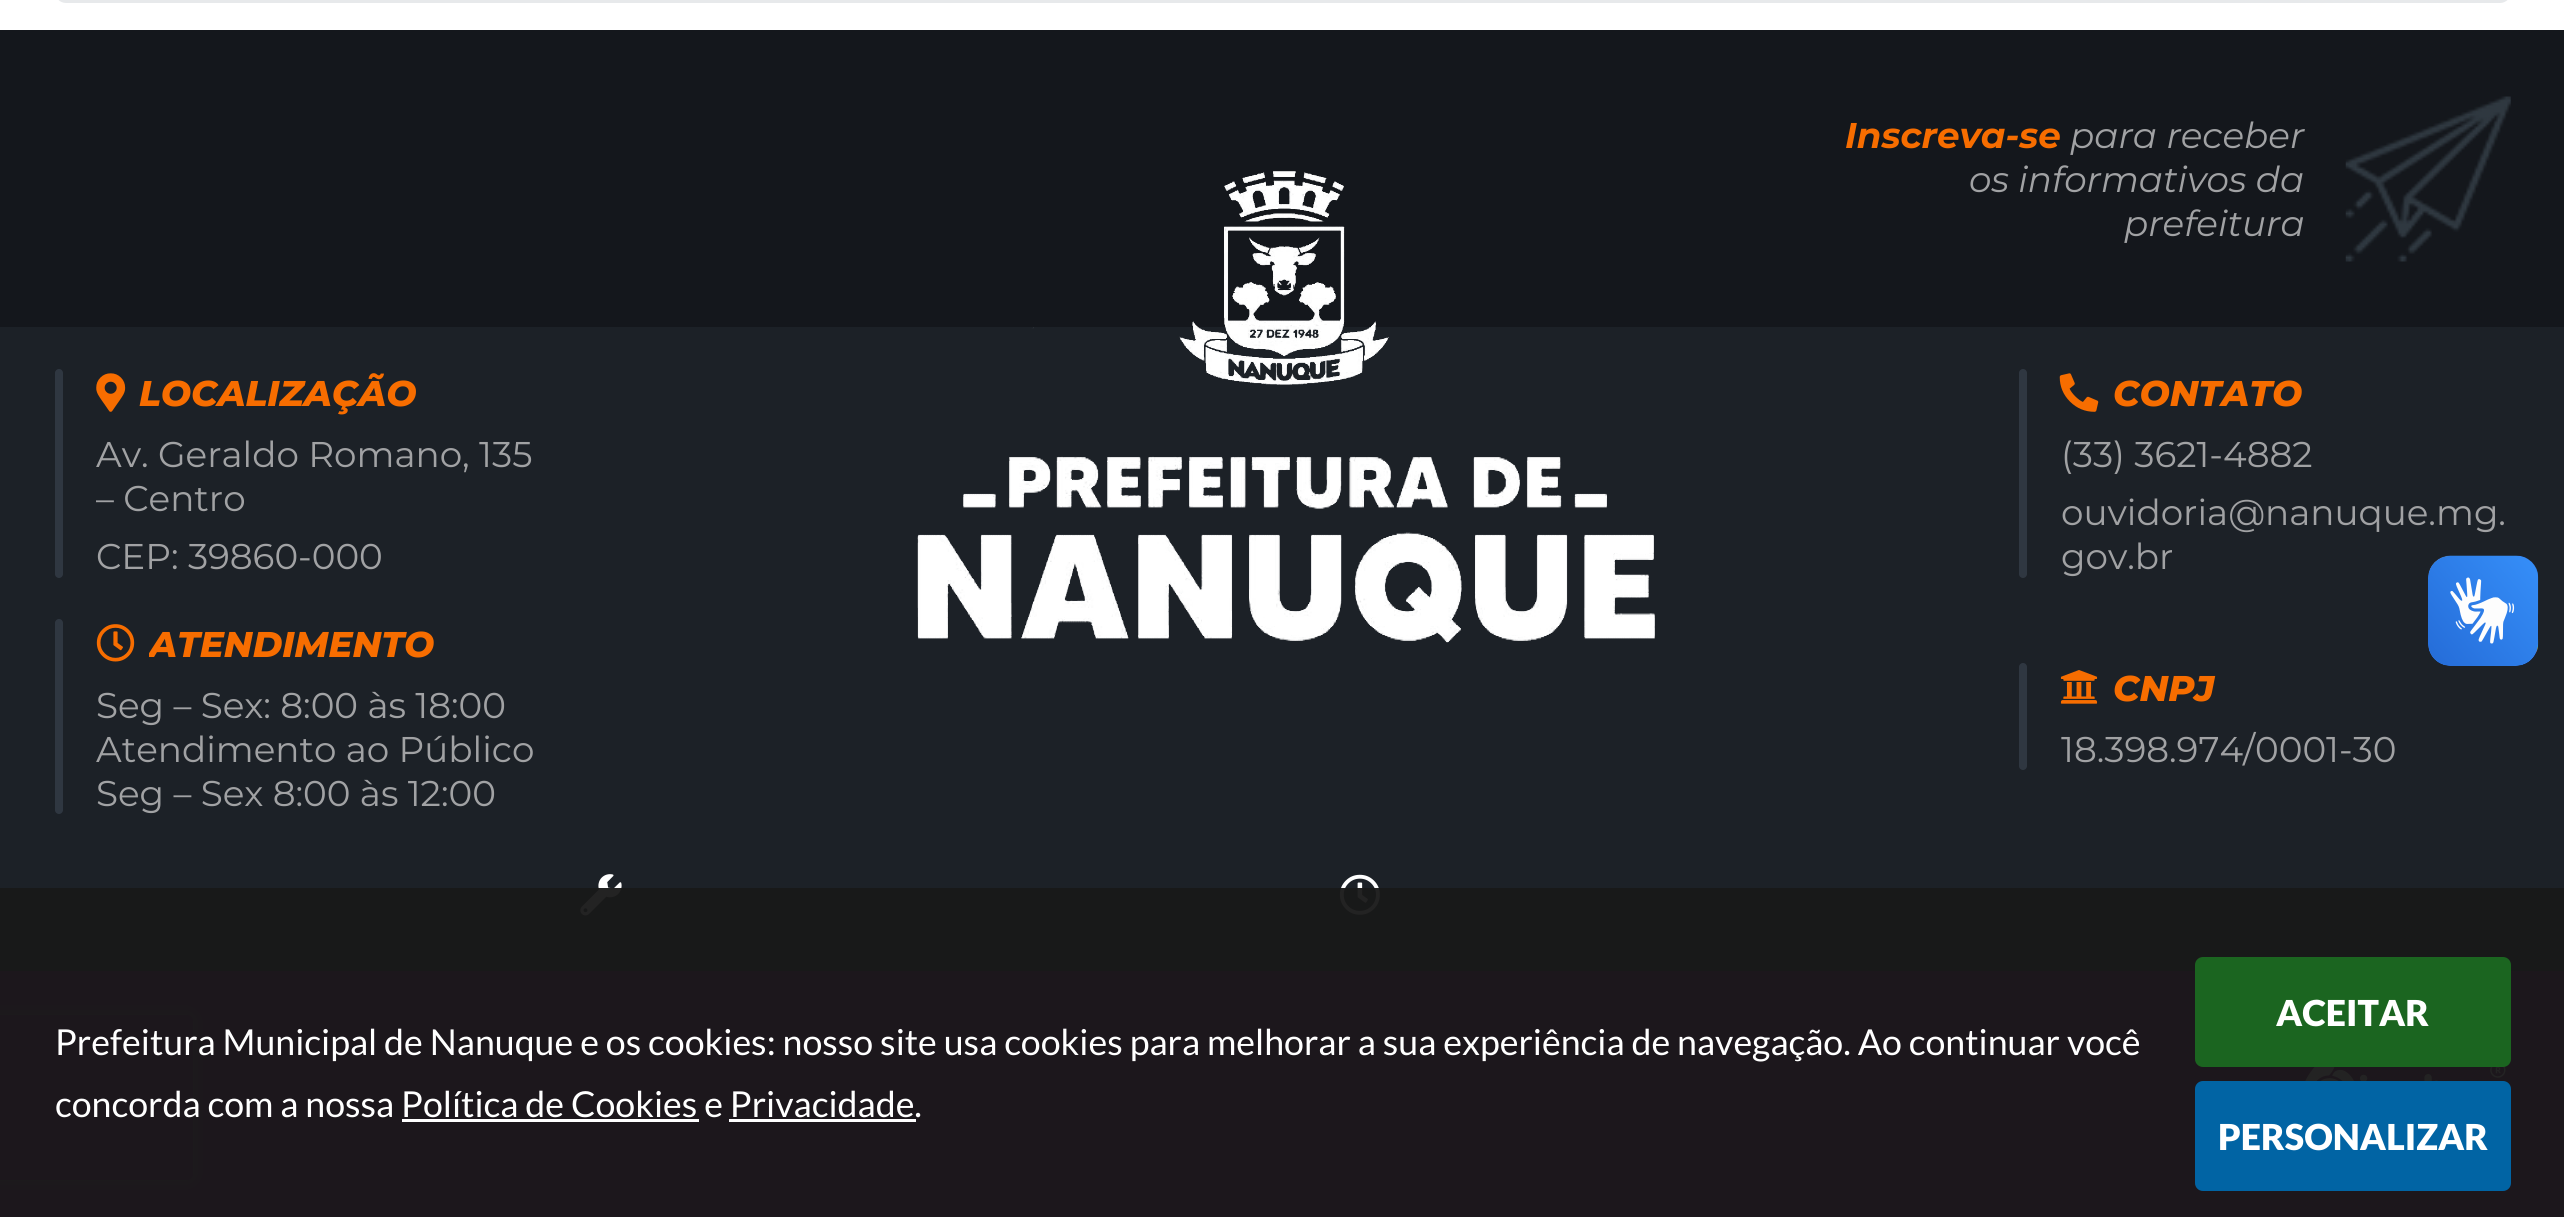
#include <cairo.h>
#include <math.h>
#include <stddef.h>

typedef struct { const char *family; double size; int italic, bold; unsigned color; } style_t;
static cairo_t *ctx;

static void ink(unsigned color) {
    cairo_set_source_rgb(ctx, (color >> 16) / 255.0, (color >> 8 & 255) / 255.0, (color & 255) / 255.0);
}

static void write(double x, double y, const char *s, const style_t *st) {
    cairo_select_font_face(ctx, st->family, st->italic ? CAIRO_FONT_SLANT_ITALIC : CAIRO_FONT_SLANT_NORMAL,
        st->bold ? CAIRO_FONT_WEIGHT_BOLD : CAIRO_FONT_WEIGHT_NORMAL);
    cairo_set_font_size(ctx, st->size);
    ink(st->color);
    cairo_move_to(ctx, x, y);
    cairo_show_text(ctx, s);
}

static void block(double x, double y, double w, double h, unsigned color) {
    ink(color);
    cairo_rectangle(ctx, x, y, w, h);
    cairo_fill(ctx);
}

static void round_path(double x, double y, double w, double h, double r) {
    cairo_new_sub_path(ctx);
    cairo_arc(ctx, x + w - r, y + h - r, r, 0, M_PI / 2);
    cairo_arc(ctx, x + r, y + h - r, r, M_PI / 2, M_PI);
    cairo_arc(ctx, x + r, y + r, r, M_PI, 1.5 * M_PI);
    cairo_arc(ctx, x + w - r, y + r, r, 1.5 * M_PI, 2 * M_PI);
    cairo_close_path(ctx);
}

static void blur_box(double x, double y, double w, double h, double r, double blur, double alpha) {
    cairo_push_group_with_content(ctx, CAIRO_CONTENT_ALPHA);
    cairo_set_operator(ctx, CAIRO_OPERATOR_SOURCE);
    for (int i = 15; i >= -15 && fmin(w, h) + blur * i / 3 > 0; i -= 2) {
        double e = blur * i / 6;
        cairo_set_source_rgba(ctx, 0, 0, 0, alpha * erfc((i - 1) / 8.5) / 2);
        round_path(x - e, y - e, w + 2 * e, h + 2 * e, fmax(0, fmin(r + e + blur * .6, fmin(w, h) / 2 + e)));
        cairo_fill(ctx);
    }
    cairo_pattern_t *soft = cairo_pop_group(ctx);
    cairo_mask(ctx, soft);
    cairo_pattern_destroy(soft);
}

static void paste(const char *path, double x, double y, double w, double h) {
    cairo_surface_t *image = cairo_image_surface_create_from_png(path);
    cairo_save(ctx);
    cairo_set_source_surface(ctx, image, x, y);
    cairo_rectangle(ctx, x, y, w, h);
    cairo_fill(ctx);
    cairo_restore(ctx);
    cairo_surface_destroy(image);
}

static const style_t s1 = {"Montserrat", 35.75, 1, 1, 0xf76d00};
static const style_t s2 = {"Montserrat", 35.75, 1, 0, 0xa1a2a4};
static const style_t s3 = {"Montserrat ExtraBold", 35.75, 1, 0, 0xf76d00};
static const style_t s4 = {"Montserrat", 35.75, 0, 0, 0xa1a2a4};
static const style_t s5 = {"Lato", 35.75, 0, 0, 0xffffff};
static const style_t s6 = {"Lato Black", 35.75, 0, 0, 0xffffff};

int main(void) {
    cairo_surface_t *surface = cairo_image_surface_create(CAIRO_FORMAT_RGB24, 2564, 1217);
    ctx = cairo_create(surface);
    cairo_font_options_t *options = cairo_font_options_create();
    cairo_font_options_set_hint_metrics(options, CAIRO_HINT_METRICS_OFF);
    cairo_font_options_set_hint_style(options, CAIRO_HINT_STYLE_NONE);
    cairo_set_font_options(ctx, options);
    cairo_set_miter_limit(ctx, 4);
    ink(0xffffff);
    cairo_paint(ctx);
    round_path(56.5, -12.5, 2453, 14, 9.5);
    ink(0xe7e9eb);
    cairo_set_line_width(ctx, 3);
    cairo_stroke(ctx);
    block(0, 327, 2564, 644, 0x1c2127);
    block(0, 30, 2564, 297, 0x14171c);
    paste("pic1.png", 2345, 96, 166, 166);
    write(1845, 148, "Inscreva-se", &s1);
    write(2070, 148, "para receber", &s2);
    write(1969, 192, "os informativos da", &s2);
    write(2124, 236, "prefeitura", &s2);
    paste("pic2.png", 917, 171, 738, 472);
    ink(0x2f3741);
    round_path(55, 369, 8, 209, 4);
    cairo_fill(ctx);
    paste("pic3.png", 96, 373, 30, 39);
    write(139, 406, "LOCALIZAÇÃO", &s3);
    write(96, 467, "Av. Geraldo Romano, 135", &s4);
    write(96, 511, "– Centro", &s4);
    write(96, 569, "CEP: 39860-000", &s4);
    ink(0x2f3741);
    round_path(2019, 369, 8, 209, 4);
    cairo_fill(ctx);
    paste("pic4.png", 2059, 373, 40, 39);
    write(2113, 406, "CONTATO", &s3);
    write(2061, 467, "(33) 3621-4882", &s4);
    write(2061, 525, "ouvidoria@nanuque.mg.", &s4);
    write(2061, 569, "gov.br", &s4);
    ink(0x2f3741);
    round_path(55, 619, 8, 195, 4);
    cairo_fill(ctx);
    paste("pic5.png", 96, 624, 39, 38);
    cairo_save(ctx);
    cairo_rectangle(ctx, 149, 619, 398, 49);
    cairo_clip(ctx);
    write(149, 657, "ATENDIMENTO", &s3);
    cairo_restore(ctx);
    write(96, 718, "Seg – Sex: 8:00 às 18:00", &s4);
    write(96, 762, "Atendimento ao Público", &s4);
    write(96, 806, "Seg – Sex 8:00 às 12:00", &s4);
    ink(0x2f3741);
    round_path(2019, 663, 8, 107, 4);
    cairo_fill(ctx);
    paste("pic6.png", 2060, 670, 38, 34);
    write(2113, 701, "CNPJ", &s3);
    write(2061, 762, "18.398.974/0001-30", &s4);
    paste("pic7.png", 580, 874, 42, 42);
    paste("pic8.png", 1339, 874, 41, 41);
    block(0, 971, 2564, 246, 0x660066);
    paste("pic9.png", 2305, 1066, 201, 15);
    cairo_save(ctx);
    cairo_set_fill_rule(ctx, CAIRO_FILL_RULE_EVEN_ODD);
    cairo_new_path(ctx);
    cairo_move_to(ctx, 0, 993);
    cairo_line_to(ctx, 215, 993);
    cairo_line_to(ctx, 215, 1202);
    cairo_line_to(ctx, 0, 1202);
    cairo_close_path(ctx);
    cairo_move_to(ctx, -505, 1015);
    cairo_line_to(ctx, 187, 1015);
    cairo_curve_to(ctx, 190.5, 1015, 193, 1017.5, 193, 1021);
    cairo_line_to(ctx, 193, 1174);
    cairo_curve_to(ctx, 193, 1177.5, 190.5, 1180, 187, 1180);
    cairo_line_to(ctx, -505, 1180);
    cairo_curve_to(ctx, -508.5, 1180, -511, 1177.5, -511, 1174);
    cairo_line_to(ctx, -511, 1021);
    cairo_curve_to(ctx, -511, 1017.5, -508.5, 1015, -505, 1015);
    cairo_close_path(ctx);
    cairo_clip(ctx);
    ink(0x808080);
    blur_box(-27, 1015, 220, 165, 6, 7, 1);
    cairo_restore(ctx);
    paste("pic10.png", 2428, 555, 111, 111);
    paste("pic11.png", 2428, 556, 110, 110);
    cairo_set_source_rgba(ctx, 0.098, 0.098, 0.098, 0.95);
    cairo_rectangle(ctx, 0, 888, 2564, 329);
    cairo_fill(ctx);
    write(55, 1055, "Prefeitura Municipal de Nanuque e os cookies: nosso site usa cookies para melhorar a sua experiência de navegação. Ao continuar você", &s5);
    write(55, 1117, "concorda com a nossa Política de Cookies e Privacidade.", &s5);
    block(402, 1119, 297, 3, 0xffffff);
    block(729, 1119, 187, 3, 0xffffff);
    ink(0x1b6520);
    round_path(2195, 957, 316, 110, 8);
    cairo_fill(ctx);
    write(2276, 1026, "ACEITAR", &s6);
    ink(0x0164a4);
    round_path(2195, 1081, 316, 110, 8);
    cairo_fill(ctx);
    write(2218, 1150, "PERSONALIZAR", &s6);
    cairo_surface_write_to_png(surface, "screenshot.png");
    cairo_font_options_destroy(options);
    cairo_destroy(ctx);
    cairo_surface_destroy(surface);
    return 0;
}
